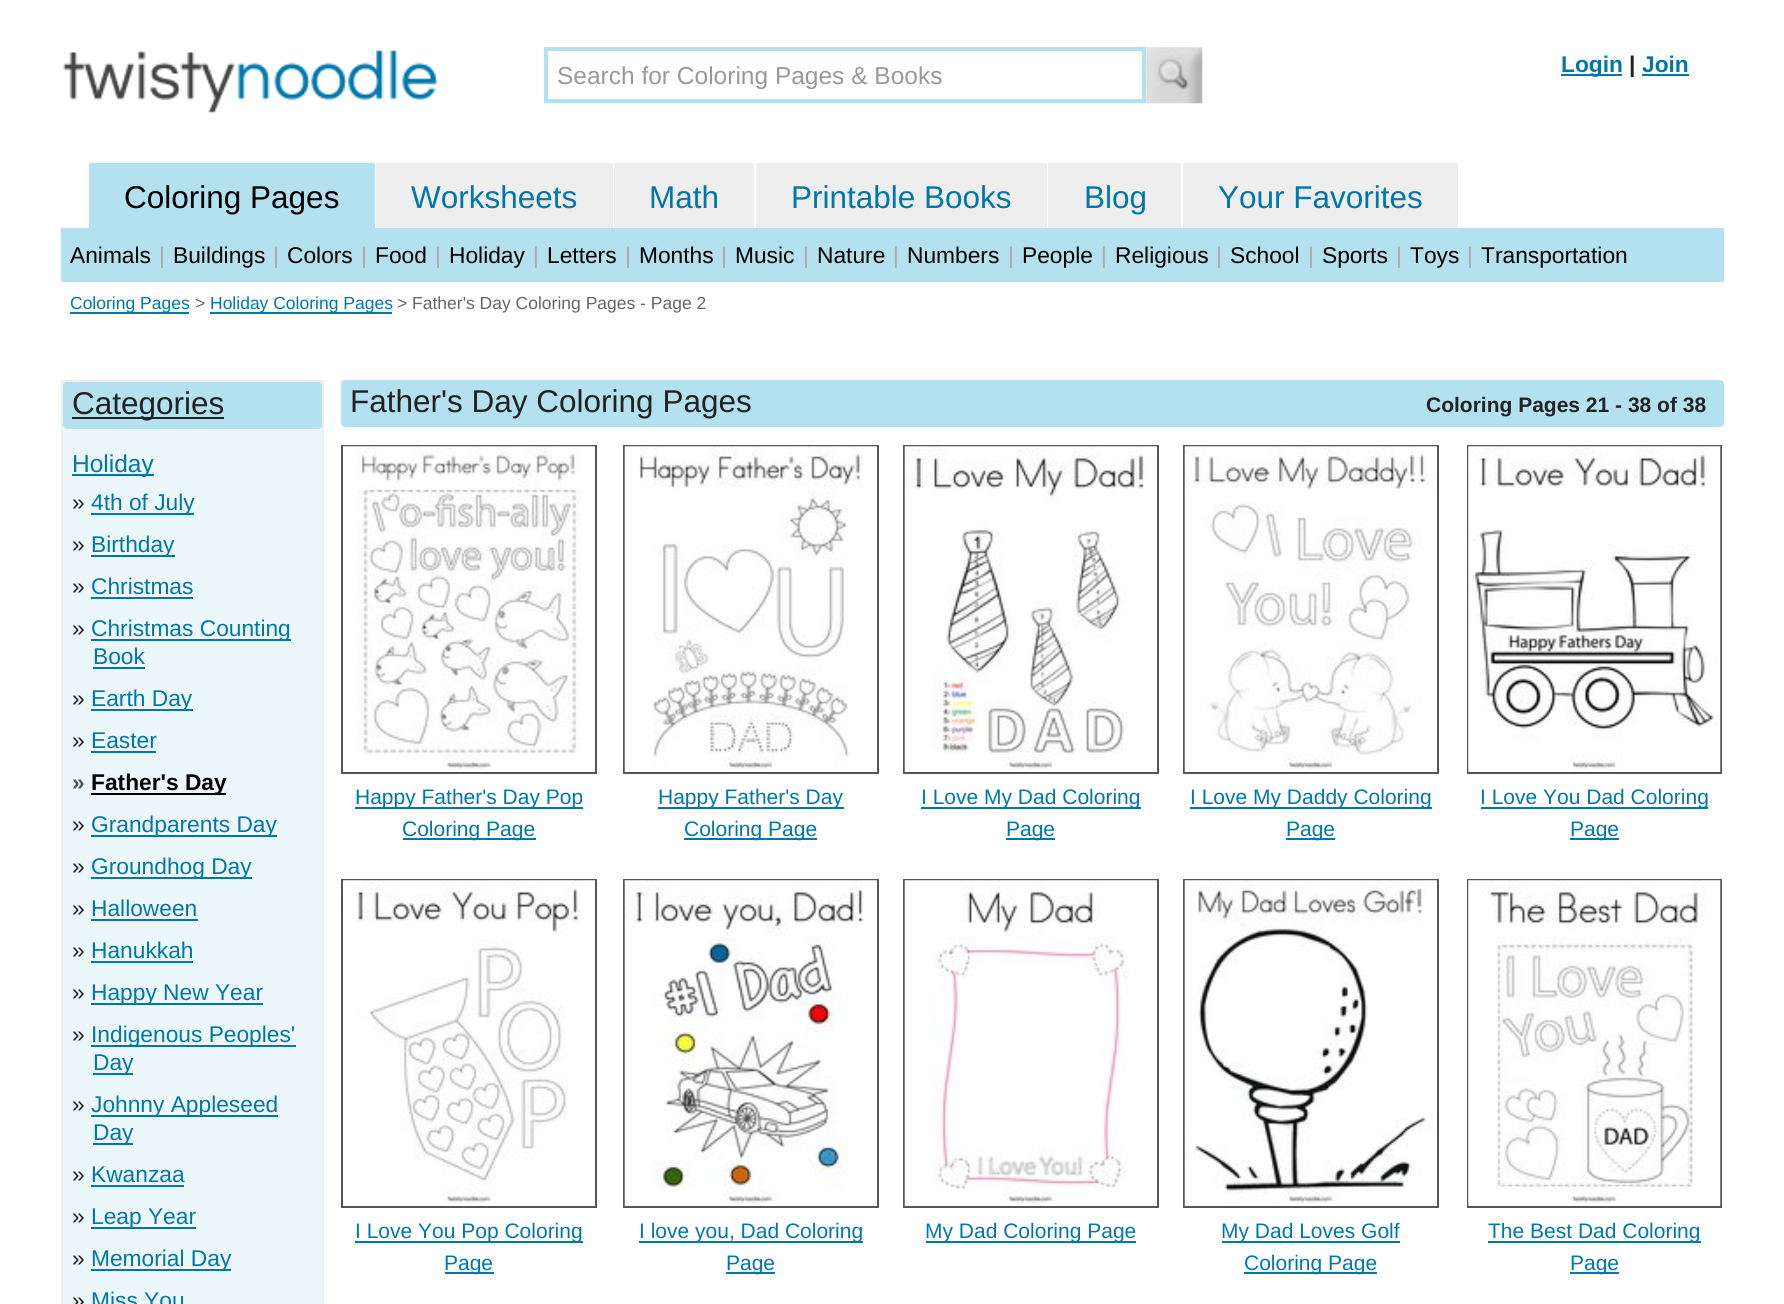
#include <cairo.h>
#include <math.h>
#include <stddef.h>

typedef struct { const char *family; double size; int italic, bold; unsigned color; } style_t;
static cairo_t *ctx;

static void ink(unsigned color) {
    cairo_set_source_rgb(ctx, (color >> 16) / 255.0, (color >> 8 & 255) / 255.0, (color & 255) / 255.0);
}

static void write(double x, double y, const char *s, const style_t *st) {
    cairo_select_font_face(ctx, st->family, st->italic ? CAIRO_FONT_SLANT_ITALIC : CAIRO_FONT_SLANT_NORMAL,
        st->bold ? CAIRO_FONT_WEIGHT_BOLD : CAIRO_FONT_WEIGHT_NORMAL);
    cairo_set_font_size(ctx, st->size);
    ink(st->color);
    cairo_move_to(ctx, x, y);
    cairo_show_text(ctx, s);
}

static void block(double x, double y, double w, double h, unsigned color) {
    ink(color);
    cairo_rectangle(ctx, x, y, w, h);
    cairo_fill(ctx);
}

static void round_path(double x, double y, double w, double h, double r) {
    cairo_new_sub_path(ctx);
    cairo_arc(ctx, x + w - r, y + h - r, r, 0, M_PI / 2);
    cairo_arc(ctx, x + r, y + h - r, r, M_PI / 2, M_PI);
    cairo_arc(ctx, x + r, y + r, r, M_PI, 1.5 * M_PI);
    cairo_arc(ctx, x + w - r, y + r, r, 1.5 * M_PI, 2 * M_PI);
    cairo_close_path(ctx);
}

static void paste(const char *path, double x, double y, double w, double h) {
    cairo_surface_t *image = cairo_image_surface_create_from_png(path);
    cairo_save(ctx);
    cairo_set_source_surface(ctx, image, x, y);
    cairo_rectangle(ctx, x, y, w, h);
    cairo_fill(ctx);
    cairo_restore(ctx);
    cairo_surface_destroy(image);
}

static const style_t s1 = {"Liberation Sans", 24.5, 0, 0, 0x999999};
static const style_t s2 = {"Liberation Sans", 22.75, 0, 1, 0x0077aa};
static const style_t s3 = {"Liberation Sans", 22.75, 0, 1, 0x222222};
static const style_t s4 = {"Liberation Sans", 31.5, 0, 0, 0x000000};
static const style_t s5 = {"Liberation Sans", 31.5, 0, 0, 0x0077aa};
static const style_t s6 = {"Liberation Sans", 22.75, 0, 0, 0x000000};
static const style_t s7 = {"Liberation Sans", 22.75, 0, 0, 0xaaaaaa};
static const style_t s8 = {"Liberation Sans", 17.5, 0, 0, 0x0077aa};
static const style_t s9 = {"Liberation Sans", 17.5, 0, 0, 0x666666};
static const style_t s10 = {"Liberation Sans", 31.5, 0, 0, 0x222222};
static const style_t s11 = {"Liberation Sans", 24.5, 0, 0, 0x0077aa};
static const style_t s12 = {"Liberation Sans", 22.75, 0, 0, 0x222222};
static const style_t s13 = {"Liberation Sans", 22.75, 0, 0, 0x0077aa};
static const style_t s14 = {"Liberation Sans", 22.75, 0, 1, 0x555555};
static const style_t s15 = {"Liberation Sans", 22.75, 0, 1, 0x000000};
static const style_t s16 = {"Liberation Sans", 21, 0, 1, 0x222222};
static const style_t s17 = {"Liberation Sans", 21, 0, 0, 0x0077aa};

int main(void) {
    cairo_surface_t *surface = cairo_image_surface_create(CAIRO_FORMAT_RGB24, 1784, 1304);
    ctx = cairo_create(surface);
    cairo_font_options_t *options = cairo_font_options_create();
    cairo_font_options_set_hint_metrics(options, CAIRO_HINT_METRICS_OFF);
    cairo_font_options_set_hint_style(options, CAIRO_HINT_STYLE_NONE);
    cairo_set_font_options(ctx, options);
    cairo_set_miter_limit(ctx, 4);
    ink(0xffffff);
    cairo_paint(ctx);
    paste("pic1.png", 62, 50, 376, 63);
    cairo_rectangle(ctx, 546, 49, 598, 52);
    ink(0xb3e1f0);
    cairo_set_line_width(ctx, 4);
    cairo_stroke(ctx);
    write(557, 84, "Search for Coloring Pages & Books", &s1);
    paste("pic2.png", 1146, 47, 57, 57);
    block(1561, 74, 61, 2, 0x0077aa);
    write(1561, 72, "Login", &s2);
    write(1629, 72, "|", &s3);
    write(1642, 72, "Join", &s2);
    block(1642, 74, 47, 2, 0x0077aa);
    block(89, 163, 286, 65, 0xb3e1f0);
    write(124, 208, "Coloring Pages", &s4);
    block(376, 163, 237, 65, 0xeeeeee);
    write(411, 208, "Worksheets", &s5);
    block(614, 163, 140, 65, 0xeeeeee);
    write(649, 208, "Math", &s5);
    block(756, 163, 291, 65, 0xeeeeee);
    write(791, 208, "Printable Books", &s5);
    block(1048, 163, 133, 65, 0xeeeeee);
    write(1084, 208, "Blog", &s5);
    block(1183, 163, 275, 65, 0xeeeeee);
    write(1218, 208, "Your Favorites", &s5);
    block(61, 228, 1663, 54, 0xb3e1f0);
    write(70, 263, "Animals", &s6);
    write(159, 263, "|", &s7);
    write(173, 263, "Buildings", &s6);
    write(273, 263, "|", &s7);
    write(287, 263, "Colors", &s6);
    write(361, 263, "|", &s7);
    write(375, 263, "Food", &s6);
    write(435, 263, "|", &s7);
    write(449, 263, "Holiday", &s6);
    write(533, 263, "|", &s7);
    write(547, 263, "Letters", &s6);
    write(625, 263, "|", &s7);
    write(639, 263, "Months", &s6);
    write(721, 263, "|", &s7);
    write(735, 263, "Music", &s6);
    write(803, 263, "|", &s7);
    write(817, 263, "Nature", &s6);
    write(893, 263, "|", &s7);
    write(907, 263, "Numbers", &s6);
    write(1008, 263, "|", &s7);
    write(1022, 263, "People", &s6);
    write(1101, 263, "|", &s7);
    write(1115, 263, "Religious", &s6);
    write(1216, 263, "|", &s7);
    write(1230, 263, "School", &s6);
    write(1308, 263, "|", &s7);
    write(1322, 263, "Sports", &s6);
    write(1396, 263, "|", &s7);
    write(1410, 263, "Toys", &s6);
    write(1467, 263, "|", &s7);
    write(1481, 263, "Transportation", &s6);
    block(70, 312, 119, 2, 0x0077aa);
    write(70, 309, "Coloring Pages", &s8);
    write(195, 309, ">", &s9);
    block(210, 312, 182, 2, 0x0077aa);
    write(210, 309, "Holiday Coloring Pages", &s8);
    write(397, 309, "> Father's Day Coloring Pages - Page 2", &s9);
    ink(0xecf7fb);
    cairo_rectangle(ctx, 62, 381, 261, 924);
    cairo_fill_preserve(ctx);
    ink(0xeeeeee);
    cairo_set_line_width(ctx, 2);
    cairo_stroke(ctx);
    ink(0xb3e1f0);
    round_path(63, 382, 259, 47, 4);
    cairo_fill(ctx);
    block(72, 417, 152, 2, 0x222222);
    write(72, 414, "Categories", &s10);
    block(72, 474, 82, 2, 0x0077aa);
    write(72, 472, "Holiday", &s11);
    write(72, 510, "»", &s12);
    block(91, 513, 103, 2, 0x0077aa);
    write(91, 510, "4th of July", &s13);
    write(72, 552, "»", &s12);
    block(91, 555, 84, 2, 0x0077aa);
    write(91, 552, "Birthday", &s13);
    write(72, 594, "»", &s12);
    write(91, 594, "Christmas", &s13);
    block(91, 597, 102, 2, 0x0077aa);
    write(72, 636, "»", &s12);
    block(91, 639, 200, 2, 0x0077aa);
    write(91, 636, "Christmas Counting", &s13);
    write(93, 664, "Book", &s13);
    block(93, 667, 52, 2, 0x0077aa);
    write(72, 706, "»", &s12);
    block(91, 709, 102, 2, 0x0077aa);
    write(91, 706, "Earth Day", &s13);
    write(72, 748, "»", &s12);
    write(91, 748, "Easter", &s13);
    block(91, 751, 65, 2, 0x0077aa);
    write(72, 790, "»", &s14);
    block(91, 793, 135, 2, 0x000000);
    write(91, 790, "Father's Day", &s15);
    write(72, 832, "»", &s12);
    block(91, 835, 186, 2, 0x0077aa);
    write(91, 832, "Grandparents Day", &s13);
    write(72, 874, "»", &s12);
    block(91, 877, 161, 2, 0x0077aa);
    write(91, 874, "Groundhog Day", &s13);
    write(72, 916, "»", &s12);
    write(91, 916, "Halloween", &s13);
    block(91, 919, 107, 2, 0x0077aa);
    write(72, 958, "»", &s12);
    write(91, 958, "Hanukkah", &s13);
    block(91, 961, 102, 2, 0x0077aa);
    write(72, 1000, "»", &s12);
    block(91, 1003, 172, 2, 0x0077aa);
    write(91, 1000, "Happy New Year", &s13);
    write(72, 1042, "»", &s12);
    block(91, 1045, 205, 2, 0x0077aa);
    write(91, 1042, "Indigenous Peoples'", &s13);
    block(93, 1073, 40, 2, 0x0077aa);
    write(93, 1070, "Day", &s13);
    write(72, 1112, "»", &s12);
    block(91, 1115, 187, 2, 0x0077aa);
    write(91, 1112, "Johnny Appleseed", &s13);
    block(93, 1143, 40, 2, 0x0077aa);
    write(93, 1140, "Day", &s13);
    write(72, 1182, "»", &s12);
    write(91, 1182, "Kwanzaa", &s13);
    block(91, 1185, 93, 2, 0x0077aa);
    write(72, 1224, "»", &s12);
    block(91, 1227, 105, 2, 0x0077aa);
    write(91, 1224, "Leap Year", &s13);
    write(72, 1266, "»", &s12);
    block(91, 1269, 140, 2, 0x0077aa);
    write(91, 1266, "Memorial Day", &s13);
    write(72, 1308, "»", &s12);
    write(91, 1308, "Miss You", &s13);
    ink(0xb3e1f0);
    round_path(341, 380, 1383, 47, 4);
    cairo_fill(ctx);
    write(350, 412, "Father's Day Coloring Pages", &s10);
    write(1426, 412, "Coloring Pages 21 - 38 of 38", &s16);
    cairo_rectangle(ctx, 342, 446, 254, 327);
    ink(0x555555);
    cairo_stroke(ctx);
    paste("pic3.png", 343, 446, 252, 323);
    block(355, 807, 228, 2, 0x0077aa);
    write(355, 804, "Happy Father's Day Pop", &s17);
    block(403, 838, 133, 2, 0x0077aa);
    write(402, 836, "Coloring Page", &s17);
    cairo_rectangle(ctx, 624, 446, 254, 327);
    ink(0x555555);
    cairo_stroke(ctx);
    paste("pic4.png", 624, 446, 253, 326);
    block(658, 807, 186, 2, 0x0077aa);
    write(658, 804, "Happy Father's Day", &s17);
    block(684, 838, 133, 2, 0x0077aa);
    write(684, 836, "Coloring Page", &s17);
    cairo_rectangle(ctx, 904, 446, 254, 327);
    ink(0x555555);
    cairo_stroke(ctx);
    paste("pic5.png", 904, 446, 253, 326);
    block(921, 807, 220, 2, 0x0077aa);
    write(921, 804, "I Love My Dad Coloring", &s17);
    block(1006, 838, 49, 2, 0x0077aa);
    write(1006, 836, "Page", &s17);
    cairo_rectangle(ctx, 1184, 446, 254, 327);
    ink(0x555555);
    cairo_stroke(ctx);
    paste("pic6.png", 1184, 446, 253, 326);
    block(1190, 807, 242, 2, 0x0077aa);
    write(1190, 804, "I Love My Daddy Coloring", &s17);
    block(1286, 838, 49, 2, 0x0077aa);
    write(1286, 836, "Page", &s17);
    cairo_rectangle(ctx, 1468, 446, 253, 327);
    ink(0x555555);
    cairo_stroke(ctx);
    paste("pic7.png", 1468, 446, 253, 326);
    block(1481, 807, 227, 2, 0x0077aa);
    write(1480, 804, "I Love You Dad Coloring", &s17);
    block(1570, 838, 49, 2, 0x0077aa);
    write(1570, 836, "Page", &s17);
    cairo_rectangle(ctx, 342, 880, 254, 327);
    ink(0x555555);
    cairo_stroke(ctx);
    paste("pic8.png", 343, 880, 252, 323);
    block(355, 1241, 228, 2, 0x0077aa);
    write(355, 1238, "I Love You Pop Coloring", &s17);
    block(445, 1272, 49, 2, 0x0077aa);
    write(444, 1270, "Page", &s17);
    cairo_rectangle(ctx, 624, 880, 254, 327);
    ink(0x555555);
    cairo_stroke(ctx);
    paste("pic9.png", 624, 880, 253, 326);
    block(639, 1241, 224, 2, 0x0077aa);
    write(639, 1238, "I love you, Dad Coloring", &s17);
    block(726, 1272, 49, 2, 0x0077aa);
    write(726, 1270, "Page", &s17);
    cairo_rectangle(ctx, 904, 880, 254, 327);
    ink(0x555555);
    cairo_stroke(ctx);
    paste("pic10.png", 904, 880, 253, 326);
    block(926, 1241, 210, 2, 0x0077aa);
    write(925, 1238, "My Dad Coloring Page", &s17);
    cairo_rectangle(ctx, 1184, 880, 254, 327);
    ink(0x555555);
    cairo_stroke(ctx);
    paste("pic11.png", 1184, 880, 253, 326);
    block(1222, 1241, 178, 2, 0x0077aa);
    write(1221, 1238, "My Dad Loves Golf", &s17);
    block(1244, 1272, 133, 2, 0x0077aa);
    write(1244, 1270, "Coloring Page", &s17);
    cairo_rectangle(ctx, 1468, 880, 253, 327);
    ink(0x555555);
    cairo_stroke(ctx);
    paste("pic12.png", 1468, 880, 253, 326);
    block(1488, 1241, 213, 2, 0x0077aa);
    write(1488, 1238, "The Best Dad Coloring", &s17);
    block(1570, 1272, 49, 2, 0x0077aa);
    write(1570, 1270, "Page", &s17);
    cairo_surface_write_to_png(surface, "screenshot.png");
    cairo_font_options_destroy(options);
    cairo_destroy(ctx);
    cairo_surface_destroy(surface);
    return 0;
}
